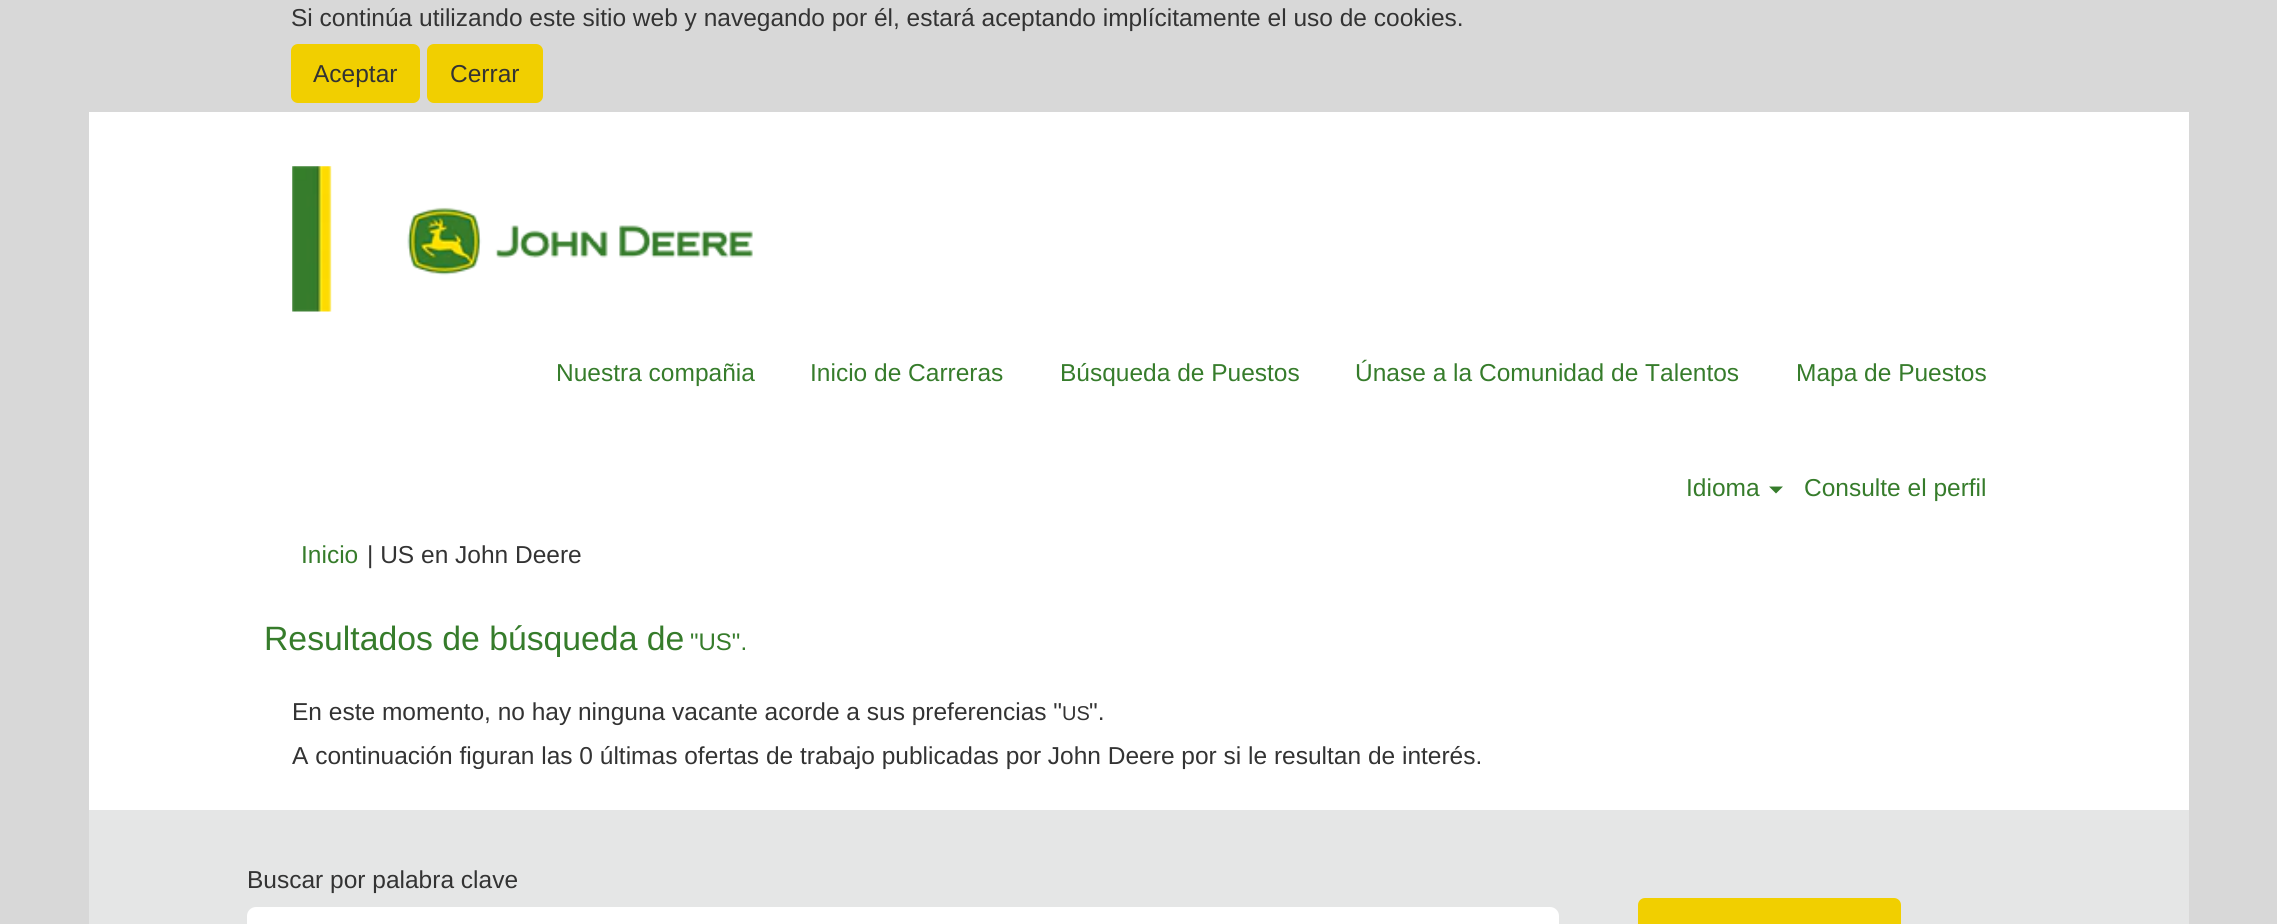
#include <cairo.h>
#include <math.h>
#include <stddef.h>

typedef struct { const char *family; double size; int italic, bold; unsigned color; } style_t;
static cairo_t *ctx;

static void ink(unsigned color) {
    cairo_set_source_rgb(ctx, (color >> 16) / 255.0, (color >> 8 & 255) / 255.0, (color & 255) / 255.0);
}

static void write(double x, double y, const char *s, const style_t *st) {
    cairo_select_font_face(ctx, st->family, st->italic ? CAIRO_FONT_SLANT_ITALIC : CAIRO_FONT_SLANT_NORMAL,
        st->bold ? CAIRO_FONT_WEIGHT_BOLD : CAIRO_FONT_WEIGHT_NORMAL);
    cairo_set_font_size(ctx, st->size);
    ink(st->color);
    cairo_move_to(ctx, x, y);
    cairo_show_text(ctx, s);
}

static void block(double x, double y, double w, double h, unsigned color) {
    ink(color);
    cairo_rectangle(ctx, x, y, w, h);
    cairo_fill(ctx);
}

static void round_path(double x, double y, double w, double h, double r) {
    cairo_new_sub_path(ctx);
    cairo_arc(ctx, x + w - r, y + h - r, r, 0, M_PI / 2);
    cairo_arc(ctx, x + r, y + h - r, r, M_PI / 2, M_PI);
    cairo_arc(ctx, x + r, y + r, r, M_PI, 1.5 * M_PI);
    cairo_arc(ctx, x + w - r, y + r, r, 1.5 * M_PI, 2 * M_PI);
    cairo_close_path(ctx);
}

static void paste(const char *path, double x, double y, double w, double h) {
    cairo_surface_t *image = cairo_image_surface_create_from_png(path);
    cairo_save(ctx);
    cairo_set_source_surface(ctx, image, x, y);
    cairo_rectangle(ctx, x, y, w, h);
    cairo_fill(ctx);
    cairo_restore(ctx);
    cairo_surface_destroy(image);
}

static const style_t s1 = {"Liberation Sans", 24.5, 0, 0, 0x333333};
static const style_t s2 = {"Liberation Sans", 24.5, 0, 0, 0x367c2b};
static const style_t s3 = {"Liberation Sans", 33.75, 0, 0, 0x367c2b};
static const style_t s4 = {"Liberation Sans", 24, 0, 0, 0x367c2b};
static const style_t s5 = {"Liberation Sans", 20, 0, 0, 0x333333};

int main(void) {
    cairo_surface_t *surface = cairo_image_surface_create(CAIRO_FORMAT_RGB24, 2277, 924);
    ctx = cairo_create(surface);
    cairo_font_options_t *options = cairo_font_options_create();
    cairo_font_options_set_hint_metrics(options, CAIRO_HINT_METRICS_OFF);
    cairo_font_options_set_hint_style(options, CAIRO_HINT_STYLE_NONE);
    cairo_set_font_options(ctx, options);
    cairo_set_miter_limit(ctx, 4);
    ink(0xd8d8d8);
    cairo_paint(ctx);
    write(291, 26, "Si continúa utilizando este sitio web y navegando por él, estará aceptando implícitamente el uso de cookies.", &s1);
    ink(0xf1cf00);
    round_path(291, 44, 129, 59, 7);
    cairo_fill(ctx);
    write(313, 82, "Aceptar", &s1);
    ink(0xf1cf00);
    round_path(427, 44, 116, 59, 7);
    cairo_fill(ctx);
    write(450, 82, "Cerrar", &s1);
    block(89, 112, 2100, 698, 0xffffff);
    paste("pic1.png", 292, 166, 461, 146);
    write(556, 381, "Nuestra compañia", &s2);
    write(810, 381, "Inicio de Carreras", &s2);
    write(1060, 381, "Búsqueda de Puestos", &s2);
    write(1355, 381, "Únase a la Comunidad de Talentos", &s2);
    write(1796, 381, "Mapa de Puestos", &s2);
    write(1686, 496, "Idioma", &s2);
    cairo_new_path(ctx);
    cairo_move_to(ctx, 1769, 486.5);
    cairo_line_to(ctx, 1783, 486.5);
    cairo_line_to(ctx, 1776, 493.5);
    cairo_close_path(ctx);
    cairo_fill(ctx);
    write(1804, 496, "Consulte el perfil", &s2);
    write(301, 563, "Inicio", &s2);
    write(367, 563, "| US en John Deere", &s1);
    write(264, 650, "Resultados de búsqueda de", &s3);
    write(690, 650, "\"US\".", &s4);
    write(292, 720, "En este momento, no hay ninguna vacante acorde a sus preferencias \"", &s1);
    write(1062, 720, "US", &s5);
    write(1089, 720, "\".", &s1);
    write(292, 764, "A continuación figuran las 0 últimas ofertas de trabajo publicadas por John Deere por si le resultan de interés.", &s1);
    block(89, 810, 2100, 114, 0xe5e6e6);
    write(247, 888, "Buscar por palabra clave", &s1);
    ink(0xffffff);
    round_path(247, 907, 1312, 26, 9);
    cairo_fill(ctx);
    ink(0xf1cf00);
    round_path(1638, 898, 263, 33, 7);
    cairo_fill(ctx);
    cairo_surface_write_to_png(surface, "screenshot.png");
    cairo_font_options_destroy(options);
    cairo_destroy(ctx);
    cairo_surface_destroy(surface);
    return 0;
}
